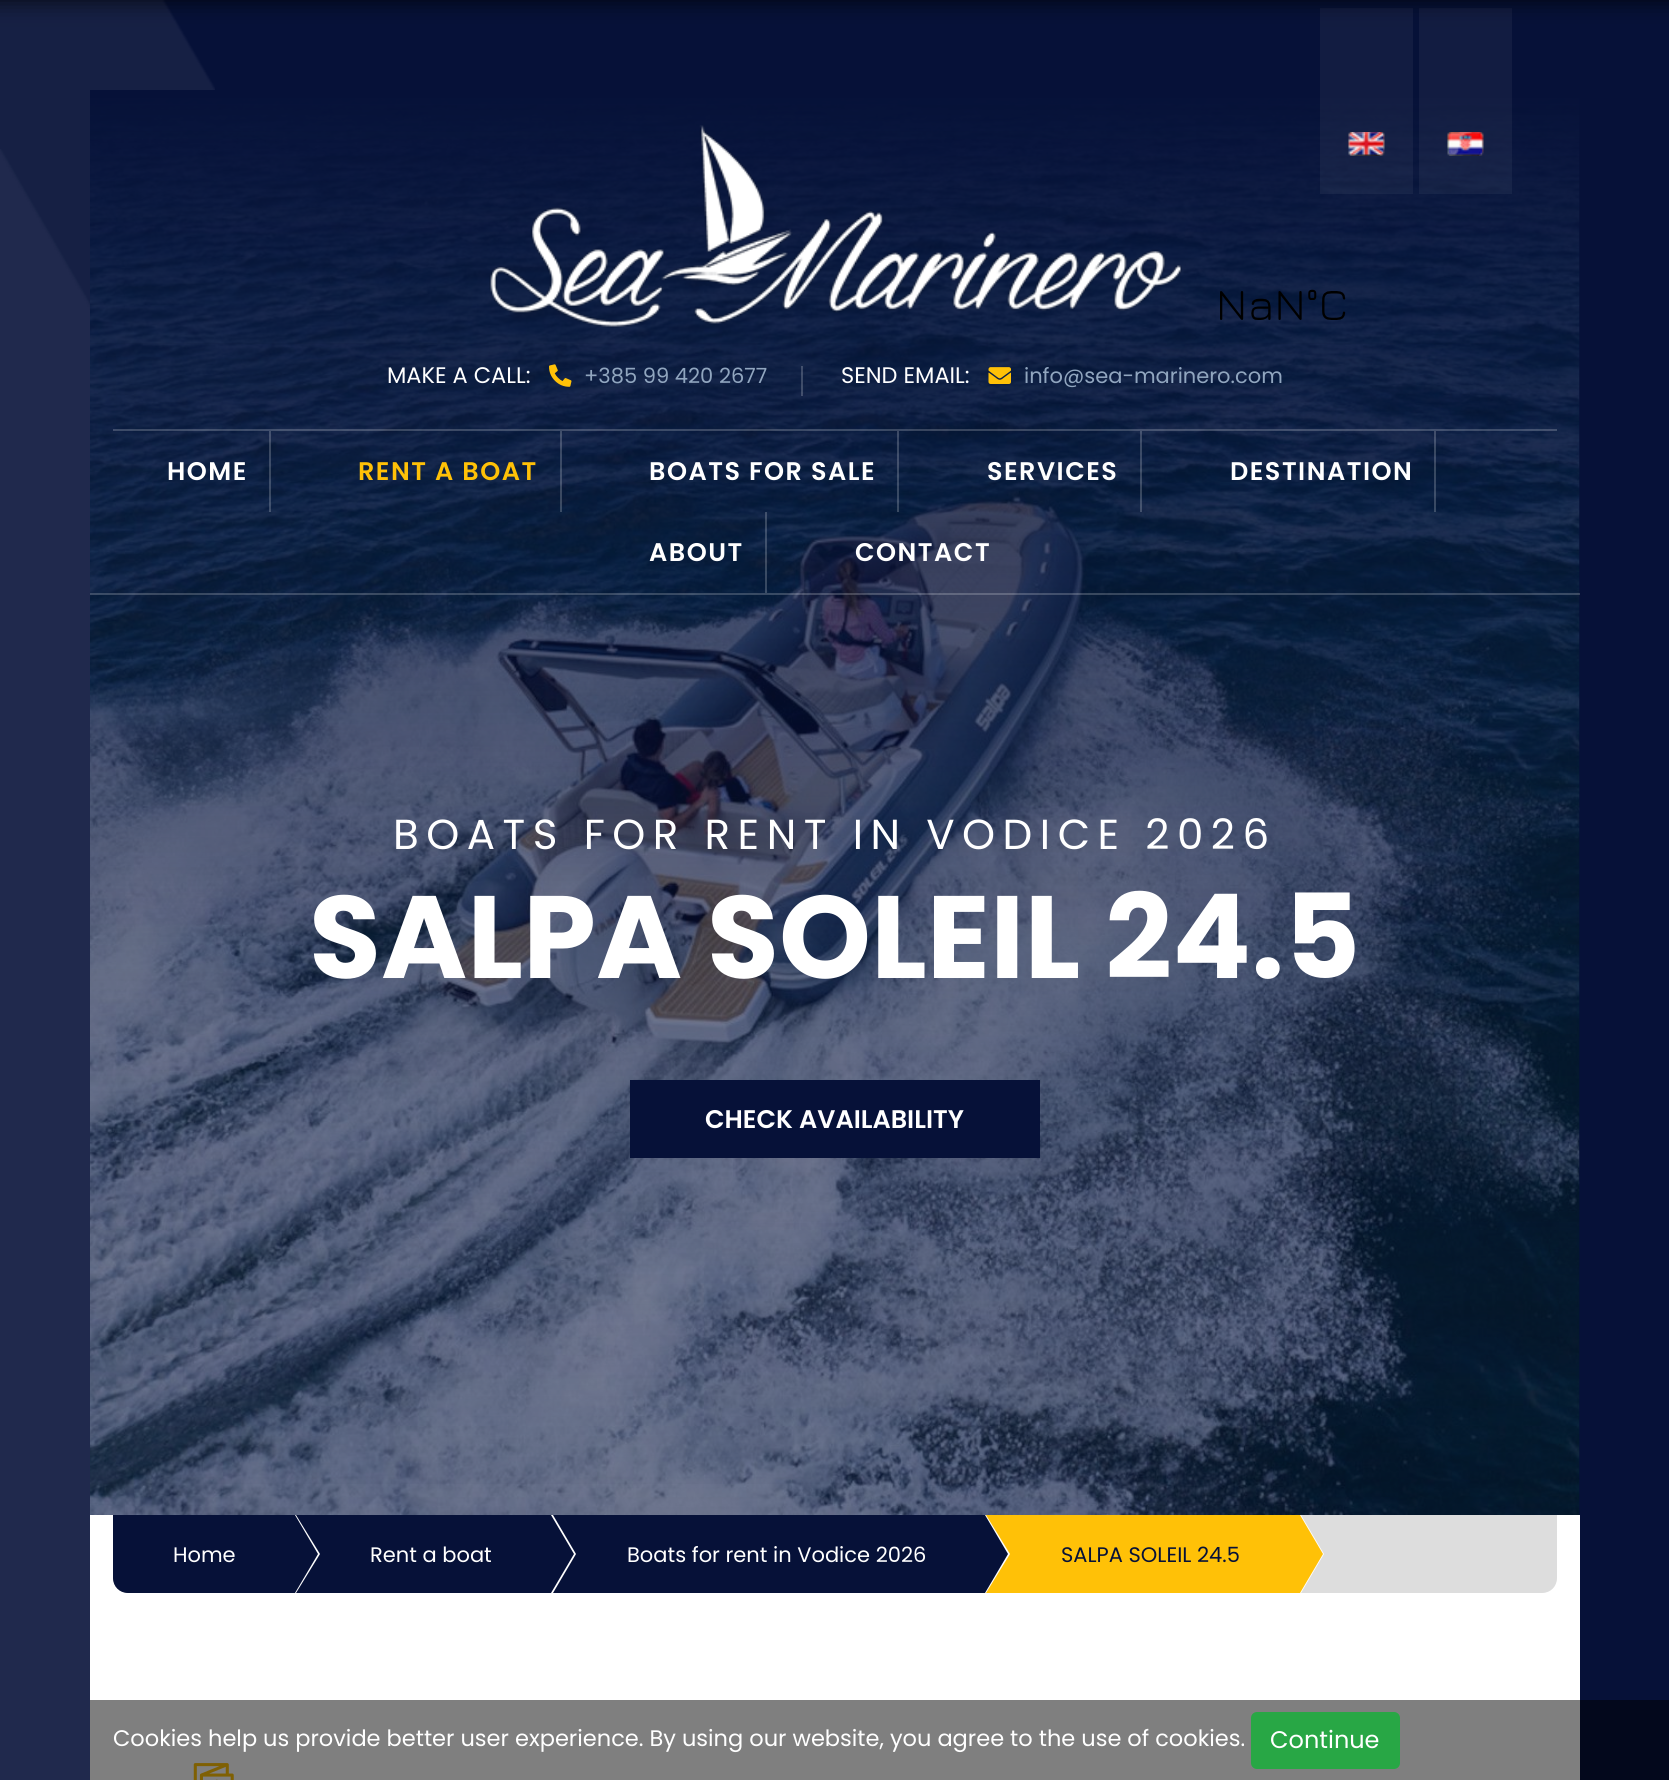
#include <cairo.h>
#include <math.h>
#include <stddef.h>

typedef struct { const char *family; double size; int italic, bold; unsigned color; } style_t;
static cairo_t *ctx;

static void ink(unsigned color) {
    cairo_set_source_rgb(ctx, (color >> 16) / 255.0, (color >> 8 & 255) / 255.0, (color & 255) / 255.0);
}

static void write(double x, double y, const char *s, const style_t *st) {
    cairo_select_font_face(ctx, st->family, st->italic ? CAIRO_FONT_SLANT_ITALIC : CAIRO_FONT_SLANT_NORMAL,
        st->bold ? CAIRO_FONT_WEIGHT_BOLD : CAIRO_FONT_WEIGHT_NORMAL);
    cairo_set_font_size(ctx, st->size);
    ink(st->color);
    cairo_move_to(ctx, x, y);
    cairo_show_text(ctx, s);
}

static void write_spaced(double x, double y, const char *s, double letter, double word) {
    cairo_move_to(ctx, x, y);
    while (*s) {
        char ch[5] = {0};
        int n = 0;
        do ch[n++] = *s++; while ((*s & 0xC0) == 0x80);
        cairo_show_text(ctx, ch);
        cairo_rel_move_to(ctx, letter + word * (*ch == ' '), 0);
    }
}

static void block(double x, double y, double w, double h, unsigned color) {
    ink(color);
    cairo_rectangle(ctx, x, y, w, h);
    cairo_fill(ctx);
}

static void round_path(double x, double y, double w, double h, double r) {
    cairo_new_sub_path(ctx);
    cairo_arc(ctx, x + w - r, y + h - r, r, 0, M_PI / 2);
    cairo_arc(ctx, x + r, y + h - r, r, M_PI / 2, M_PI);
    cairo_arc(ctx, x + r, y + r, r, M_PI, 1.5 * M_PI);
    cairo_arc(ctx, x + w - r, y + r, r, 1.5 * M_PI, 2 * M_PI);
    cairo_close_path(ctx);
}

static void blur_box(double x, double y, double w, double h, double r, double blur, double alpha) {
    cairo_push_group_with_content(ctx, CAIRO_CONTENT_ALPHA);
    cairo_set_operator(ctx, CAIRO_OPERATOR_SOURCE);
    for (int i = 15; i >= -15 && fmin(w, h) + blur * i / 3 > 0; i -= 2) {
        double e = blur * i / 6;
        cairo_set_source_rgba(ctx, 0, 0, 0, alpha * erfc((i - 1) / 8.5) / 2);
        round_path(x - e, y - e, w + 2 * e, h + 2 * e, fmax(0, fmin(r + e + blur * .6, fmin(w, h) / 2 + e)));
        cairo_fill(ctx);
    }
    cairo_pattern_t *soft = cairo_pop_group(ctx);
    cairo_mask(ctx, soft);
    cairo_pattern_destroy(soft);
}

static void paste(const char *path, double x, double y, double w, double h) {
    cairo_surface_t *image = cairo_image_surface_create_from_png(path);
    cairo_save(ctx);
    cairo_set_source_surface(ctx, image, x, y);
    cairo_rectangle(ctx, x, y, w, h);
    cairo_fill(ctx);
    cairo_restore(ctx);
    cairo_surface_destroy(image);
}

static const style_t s1 = {"Poppins", 22.5, 0, 0, 0xffffff};
static const style_t s2 = {"Poppins", 21, 0, 0, 0x91a6bf};
static const style_t s3 = {"Poppins", 117, 0, 1, 0xffffff};
static const style_t s4 = {"Poppins SemiBold", 25.5, 0, 0, 0xffffff};
static const style_t s5 = {"Poppins", 21, 0, 0, 0xffffff};
static const style_t s6 = {"Poppins", 21, 0, 0, 0x061138};
static const style_t s7 = {"Poppins", 24, 0, 0, 0xffffff};

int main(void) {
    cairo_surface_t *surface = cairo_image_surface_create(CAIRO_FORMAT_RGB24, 1669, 1780);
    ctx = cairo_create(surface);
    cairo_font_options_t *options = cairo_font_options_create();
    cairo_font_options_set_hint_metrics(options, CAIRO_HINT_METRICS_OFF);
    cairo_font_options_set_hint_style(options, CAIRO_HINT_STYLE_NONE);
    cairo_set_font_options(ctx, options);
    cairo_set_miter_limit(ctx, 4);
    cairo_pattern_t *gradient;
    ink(0x061138);
    cairo_paint(ctx);
    paste("pic8.png", 0, 149, 90, 1631);
    paste("pic7.png", 0, 0, 215, 1780);
    paste("pic9.png", 90, 98, 1490, 1417);
    gradient = cairo_pattern_create_linear(835, 1515, 835, 90);
    cairo_pattern_add_color_stop_rgba(gradient, 0, 0.024, 0.067, 0.22, 0);
    cairo_pattern_add_color_stop_rgba(gradient, 1, 0.024, 0.067, 0.22, 1);
    cairo_set_source(ctx, gradient);
    cairo_pattern_destroy(gradient);
    cairo_rectangle(ctx, 90, 90, 1490, 1394);
    cairo_fill(ctx);
    cairo_set_source_rgba(ctx, 1, 1, 1, 0.05);
    cairo_rectangle(ctx, 1320, 8, 93, 186);
    cairo_fill(ctx);
    cairo_rectangle(ctx, 1419, 8, 93, 186);
    cairo_fill(ctx);
    ink(0x000000);
    blur_box(-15, -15, 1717, 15, 0, 11, 0.8);
    gradient = cairo_pattern_create_linear(835, 90, 835, 1515);
    cairo_pattern_add_color_stop_rgba(gradient, 0, 0.024, 0.067, 0.22, 0);
    cairo_pattern_add_color_stop_rgba(gradient, 1, 0.024, 0.067, 0.22, 0.55);
    cairo_set_source(ctx, gradient);
    cairo_pattern_destroy(gradient);
    cairo_rectangle(ctx, 90, 343, 1490, 1172);
    cairo_fill(ctx);
    cairo_set_source_rgba(ctx, 1, 1, 1, 0.2);
    cairo_rectangle(ctx, 90, 593, 1490, 2);
    cairo_fill(ctx);
    cairo_rectangle(ctx, 113, 429, 1444, 2);
    cairo_fill(ctx);
    paste("pic1.png", 1348, 132, 37, 24);
    paste("pic2.png", 1447, 132, 37, 24);
    paste("pic3.png", 489, 125, 693, 203);
    paste("pic4.png", 1220, 289, 126, 31);
    write(387, 383, "MAKE A CALL:", &s1);
    paste("pic5.png", 549, 364, 23, 23);
    write(584, 383, "+385 99 420 2677", &s2);
    cairo_set_source_rgba(ctx, 1, 1, 1, 0.2);
    cairo_rectangle(ctx, 801, 366, 2, 30);
    cairo_fill(ctx);
    write(841, 383, "SEND EMAIL:", &s1);
    paste("pic6.png", 988, 367, 23, 17);
    write(1024, 383, "info@sea-marinero.com", &s2);
    cairo_set_source_rgba(ctx, 1, 1, 1, 0.2);
    cairo_rectangle(ctx, 269, 431, 2, 81);
    cairo_fill(ctx);
    cairo_select_font_face(ctx, "Poppins SemiBold", CAIRO_FONT_SLANT_NORMAL, CAIRO_FONT_WEIGHT_NORMAL);
    cairo_set_font_size(ctx, 25.5);
    ink(0xffffff);
    write_spaced(167, 480, "HOME", 1.5, 0);
    cairo_set_source_rgba(ctx, 1, 1, 1, 0.2);
    cairo_rectangle(ctx, 560, 431, 2, 81);
    cairo_fill(ctx);
    ink(0xffc107);
    write_spaced(358, 480, "RENT A BOAT", 1.5, 0);
    cairo_set_source_rgba(ctx, 1, 1, 1, 0.2);
    cairo_rectangle(ctx, 897, 431, 2, 81);
    cairo_fill(ctx);
    ink(0xffffff);
    write_spaced(649, 480, "BOATS FOR SALE", 1.5, 0);
    cairo_set_source_rgba(ctx, 1, 1, 1, 0.2);
    cairo_rectangle(ctx, 1140, 431, 2, 81);
    cairo_fill(ctx);
    ink(0xffffff);
    write_spaced(987, 480, "SERVICES", 1.5, 0);
    cairo_set_source_rgba(ctx, 1, 1, 1, 0.2);
    cairo_rectangle(ctx, 1434, 431, 2, 81);
    cairo_fill(ctx);
    ink(0xffffff);
    write_spaced(1230, 480, "DESTINATION", 1.5, 0);
    cairo_set_source_rgba(ctx, 1, 1, 1, 0.2);
    cairo_rectangle(ctx, 765, 512, 2, 81);
    cairo_fill(ctx);
    ink(0xffffff);
    write_spaced(649, 561, "ABOUT", 1.5, 0);
    write_spaced(855, 561, "CONTACT", 1.5, 0);
    cairo_select_font_face(ctx, "Poppins", CAIRO_FONT_SLANT_NORMAL, CAIRO_FONT_WEIGHT_NORMAL);
    cairo_set_font_size(ctx, 42);
    write_spaced(393, 849, "BOATS FOR RENT IN VODICE 2026", 7.5, 0);
    write(309, 978, "SALPA SOLEIL 24.5", &s3);
    block(630, 1080, 410, 78, 0x061138);
    write(705, 1128, "CHECK AVAILABILITY", &s4);
    block(90, 1515, 1490, 265, 0xffffff);
    ink(0xdddddd);
    cairo_new_path(ctx);
    cairo_move_to(ctx, 113, 1515);
    cairo_line_to(ctx, 1557, 1515);
    cairo_line_to(ctx, 1557, 1578);
    cairo_curve_to(ctx, 1557, 1586.5, 1550.5, 1593, 1542, 1593);
    cairo_line_to(ctx, 128, 1593);
    cairo_curve_to(ctx, 119.5, 1593, 113, 1586.5, 113, 1578);
    cairo_close_path(ctx);
    cairo_fill(ctx);
    ink(0x061138);
    cairo_new_path(ctx);
    cairo_move_to(ctx, 113, 1515);
    cairo_line_to(ctx, 273, 1515);
    cairo_line_to(ctx, 273, 1593);
    cairo_line_to(ctx, 128, 1593);
    cairo_curve_to(ctx, 119.5, 1593, 113, 1586.5, 113, 1578);
    cairo_close_path(ctx);
    cairo_fill(ctx);
    block(296, 1515, 234, 78, 0x061138);
    ink(0xffffff);
    cairo_new_path(ctx);
    cairo_move_to(ctx, 296, 1515);
    cairo_line_to(ctx, 320, 1554);
    cairo_line_to(ctx, 296, 1593);
    cairo_line_to(ctx, 274, 1593);
    cairo_line_to(ctx, 274, 1515);
    cairo_close_path(ctx);
    cairo_fill(ctx);
    ink(0x061138);
    cairo_new_path(ctx);
    cairo_move_to(ctx, 295, 1515);
    cairo_line_to(ctx, 318, 1554);
    cairo_line_to(ctx, 295, 1593);
    cairo_line_to(ctx, 273, 1593);
    cairo_line_to(ctx, 273, 1515);
    cairo_close_path(ctx);
    cairo_fill(ctx);
    write(173, 1562, "Home", &s5);
    block(553, 1515, 410, 78, 0x061138);
    ink(0xffffff);
    cairo_new_path(ctx);
    cairo_move_to(ctx, 553, 1515);
    cairo_line_to(ctx, 576, 1554);
    cairo_line_to(ctx, 553, 1593);
    cairo_line_to(ctx, 531, 1593);
    cairo_line_to(ctx, 531, 1515);
    cairo_close_path(ctx);
    cairo_fill(ctx);
    ink(0x061138);
    cairo_new_path(ctx);
    cairo_move_to(ctx, 551, 1515);
    cairo_line_to(ctx, 574, 1554);
    cairo_line_to(ctx, 551, 1593);
    cairo_line_to(ctx, 530, 1593);
    cairo_line_to(ctx, 530, 1515);
    cairo_close_path(ctx);
    cairo_fill(ctx);
    write(370, 1562, "Rent a boat", &s5);
    block(986, 1515, 292, 78, 0xffc107);
    ink(0xffffff);
    cairo_new_path(ctx);
    cairo_move_to(ctx, 986, 1515);
    cairo_line_to(ctx, 1010, 1554);
    cairo_line_to(ctx, 986, 1593);
    cairo_line_to(ctx, 964, 1593);
    cairo_line_to(ctx, 964, 1515);
    cairo_close_path(ctx);
    cairo_fill(ctx);
    ink(0x061138);
    cairo_new_path(ctx);
    cairo_move_to(ctx, 985, 1515);
    cairo_line_to(ctx, 1008, 1554);
    cairo_line_to(ctx, 985, 1593);
    cairo_line_to(ctx, 963, 1593);
    cairo_line_to(ctx, 963, 1515);
    cairo_close_path(ctx);
    cairo_fill(ctx);
    write(627, 1562, "Boats for rent in Vodice 2026", &s5);
    cairo_new_path(ctx);
    cairo_move_to(ctx, 1301, 1515);
    cairo_line_to(ctx, 1324, 1554);
    cairo_line_to(ctx, 1301, 1593);
    cairo_line_to(ctx, 1280, 1593);
    cairo_line_to(ctx, 1280, 1515);
    cairo_close_path(ctx);
    cairo_fill(ctx);
    ink(0xffc107);
    cairo_new_path(ctx);
    cairo_move_to(ctx, 1300, 1515);
    cairo_line_to(ctx, 1323, 1554);
    cairo_line_to(ctx, 1300, 1593);
    cairo_line_to(ctx, 1278, 1593);
    cairo_line_to(ctx, 1278, 1515);
    cairo_close_path(ctx);
    cairo_fill(ctx);
    write(1061, 1562, "SALPA SOLEIL 24.5", &s6);
    paste("pic10.png", 193, 1763, 41, 17);
    cairo_set_source_rgba(ctx, 0, 0, 0, 0.5);
    cairo_rectangle(ctx, 90, 1700, 1579, 80);
    cairo_fill(ctx);
    write(113, 1746, "Cookies help us provide better user experience. By using our website, you agree to the use of cookies.", &s1);
    ink(0x28a745);
    round_path(1252, 1713, 147, 55, 5);
    cairo_fill_preserve(ctx);
    cairo_stroke(ctx);
    write(1270, 1748, "Continue", &s7);
    cairo_surface_write_to_png(surface, "screenshot.png");
    cairo_font_options_destroy(options);
    cairo_destroy(ctx);
    cairo_surface_destroy(surface);
    return 0;
}
